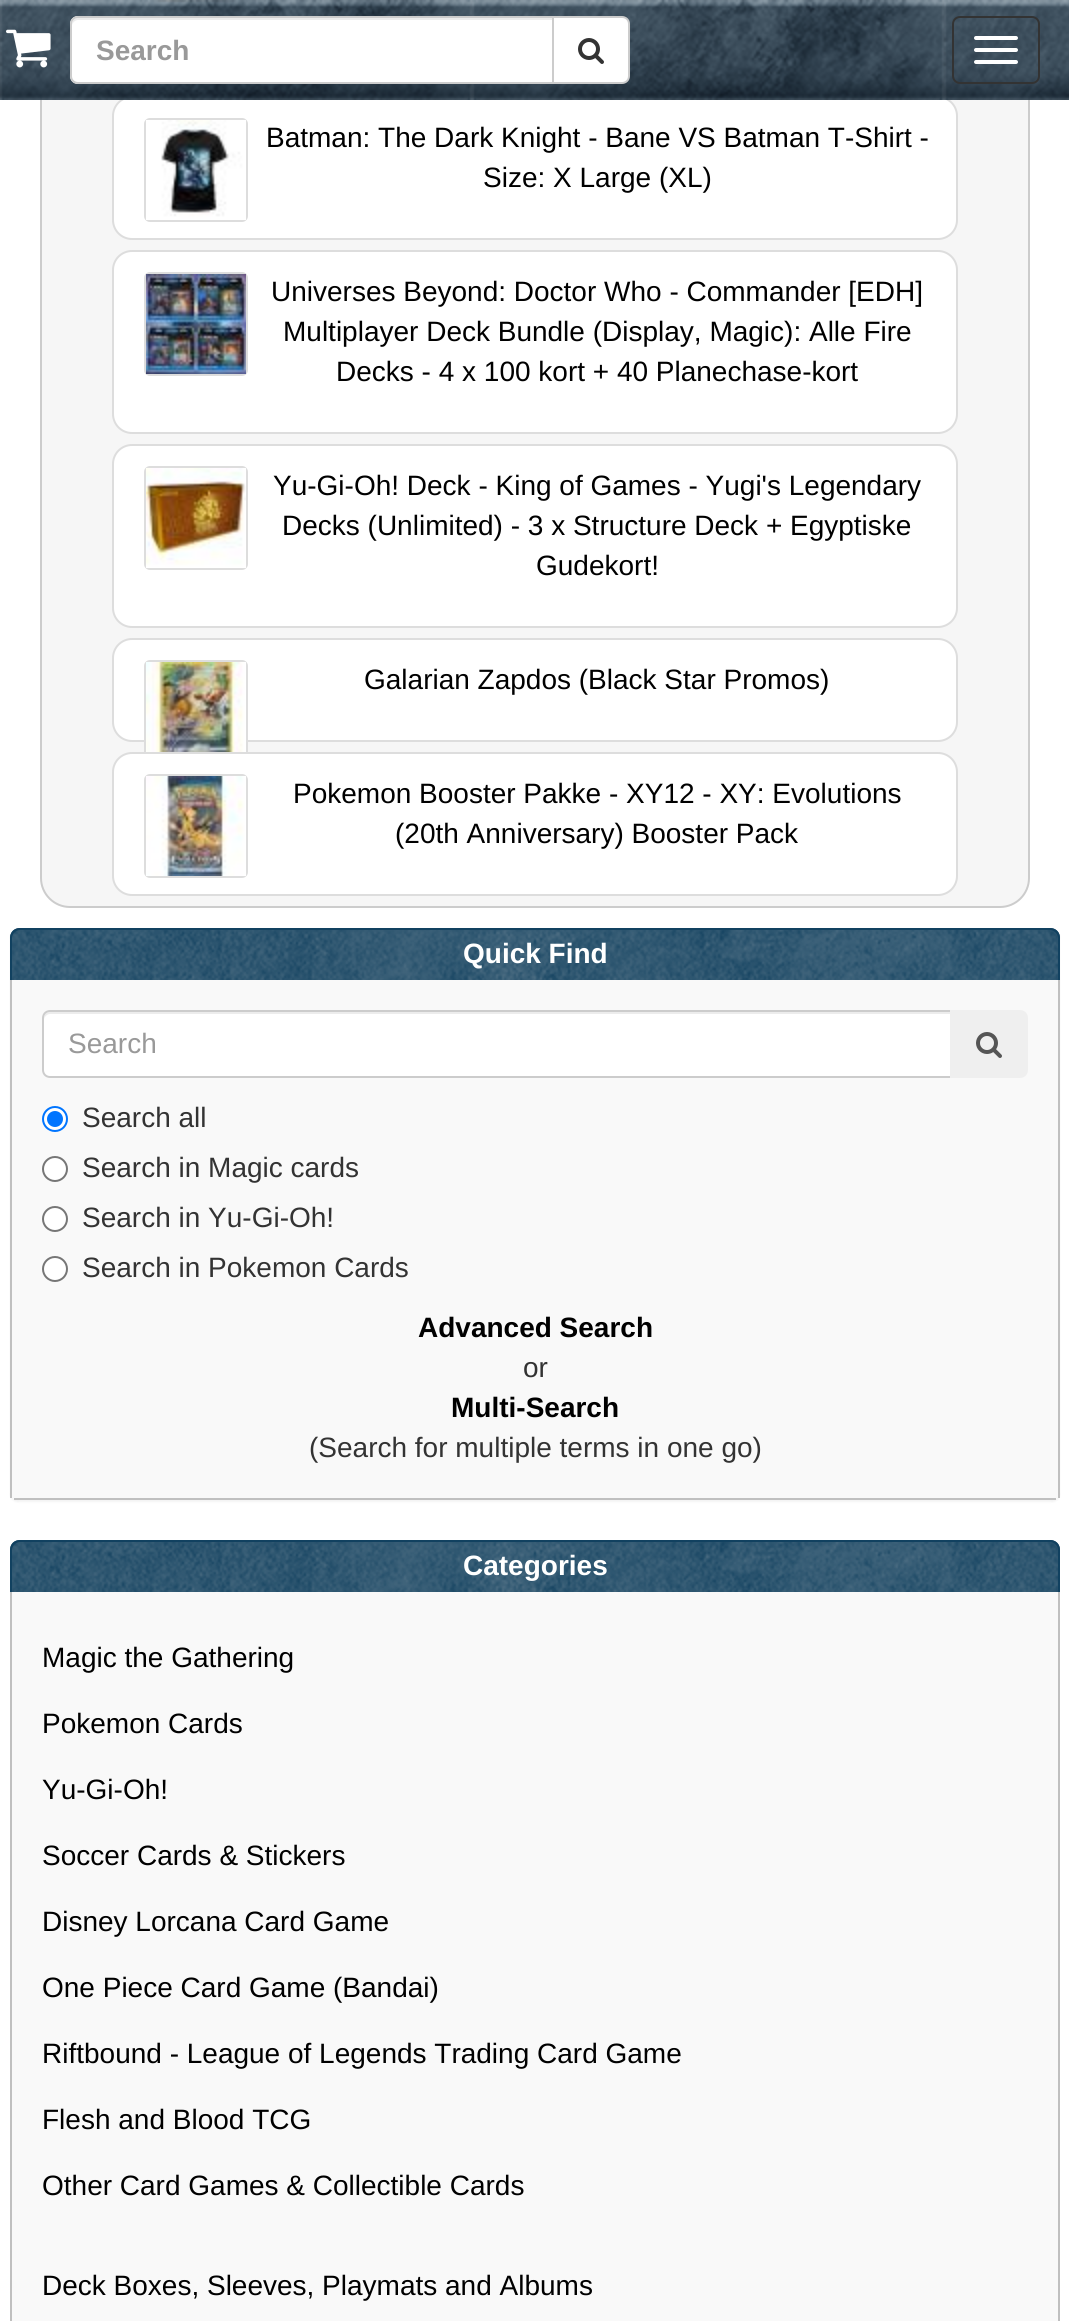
#include <cairo.h>
#include <math.h>
#include <stddef.h>

typedef struct { const char *family; double size; int italic, bold; unsigned color; } style_t;
static cairo_t *ctx;

static void ink(unsigned color) {
    cairo_set_source_rgb(ctx, (color >> 16) / 255.0, (color >> 8 & 255) / 255.0, (color & 255) / 255.0);
}

static void write(double x, double y, const char *s, const style_t *st) {
    cairo_select_font_face(ctx, st->family, st->italic ? CAIRO_FONT_SLANT_ITALIC : CAIRO_FONT_SLANT_NORMAL,
        st->bold ? CAIRO_FONT_WEIGHT_BOLD : CAIRO_FONT_WEIGHT_NORMAL);
    cairo_set_font_size(ctx, st->size);
    ink(st->color);
    cairo_move_to(ctx, x, y);
    cairo_show_text(ctx, s);
}

static void block(double x, double y, double w, double h, unsigned color) {
    ink(color);
    cairo_rectangle(ctx, x, y, w, h);
    cairo_fill(ctx);
}

static void round_path(double x, double y, double w, double h, double r) {
    cairo_new_sub_path(ctx);
    cairo_arc(ctx, x + w - r, y + h - r, r, 0, M_PI / 2);
    cairo_arc(ctx, x + r, y + h - r, r, M_PI / 2, M_PI);
    cairo_arc(ctx, x + r, y + r, r, M_PI, 1.5 * M_PI);
    cairo_arc(ctx, x + w - r, y + r, r, 1.5 * M_PI, 2 * M_PI);
    cairo_close_path(ctx);
}

static void blur_box(double x, double y, double w, double h, double r, double blur, double alpha) {
    cairo_push_group_with_content(ctx, CAIRO_CONTENT_ALPHA);
    cairo_set_operator(ctx, CAIRO_OPERATOR_SOURCE);
    for (int i = 15; i >= -15 && fmin(w, h) + blur * i / 3 > 0; i -= 2) {
        double e = blur * i / 6;
        cairo_set_source_rgba(ctx, 0, 0, 0, alpha * erfc((i - 1) / 8.5) / 2);
        round_path(x - e, y - e, w + 2 * e, h + 2 * e, fmax(0, fmin(r + e + blur * .6, fmin(w, h) / 2 + e)));
        cairo_fill(ctx);
    }
    cairo_pattern_t *soft = cairo_pop_group(ctx);
    cairo_mask(ctx, soft);
    cairo_pattern_destroy(soft);
}

static void paste(const char *path, double x, double y, double w, double h) {
    cairo_surface_t *image = cairo_image_surface_create_from_png(path);
    cairo_save(ctx);
    cairo_set_source_surface(ctx, image, x, y);
    cairo_rectangle(ctx, x, y, w, h);
    cairo_fill(ctx);
    cairo_restore(ctx);
    cairo_surface_destroy(image);
}

static const style_t s1 = {"Liberation Sans", 28, 0, 1, 0x999999};
static const style_t s2 = {"Liberation Sans", 28, 0, 0, 0x000000};
static const style_t s3 = {"Liberation Sans", 28, 0, 1, 0xffffff};
static const style_t s4 = {"Liberation Sans", 28, 0, 0, 0x999999};
static const style_t s5 = {"Liberation Sans", 28, 0, 0, 0x333333};
static const style_t s6 = {"Liberation Sans", 28, 0, 1, 0x000000};

int main(void) {
    cairo_surface_t *surface = cairo_image_surface_create(CAIRO_FORMAT_RGB24, 1069, 2321);
    ctx = cairo_create(surface);
    cairo_font_options_t *options = cairo_font_options_create();
    cairo_font_options_set_hint_metrics(options, CAIRO_HINT_METRICS_OFF);
    cairo_font_options_set_hint_style(options, CAIRO_HINT_STYLE_NONE);
    cairo_set_font_options(ctx, options);
    cairo_set_miter_limit(ctx, 4);
    ink(0xffffff);
    cairo_paint(ctx);
    ink(0xf6f6f6);
    cairo_new_path(ctx);
    cairo_move_to(ctx, 41, -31);
    cairo_line_to(ctx, 1029, -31);
    cairo_line_to(ctx, 1029, 878);
    cairo_curve_to(ctx, 1029, 894, 1016, 907, 1000, 907);
    cairo_line_to(ctx, 70, 907);
    cairo_curve_to(ctx, 54, 907, 41, 894, 41, 878);
    cairo_close_path(ctx);
    cairo_fill_preserve(ctx);
    ink(0xcccccc);
    cairo_stroke(ctx);
    round_path(113, -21, 844, 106, 19);
    ink(0xdddddd);
    cairo_stroke(ctx);
    cairo_rectangle(ctx, 145, -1, 102, 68);
    cairo_stroke(ctx);
    paste("pic4.png", 146, 0, 100, 3);
    ink(0xffffff);
    round_path(113, 97, 844, 142, 19);
    cairo_fill_preserve(ctx);
    ink(0xdddddd);
    cairo_stroke(ctx);
    paste("pic1.png", 0, 0, 1069, 100);
    paste("pic2.png", 6, 29, 45, 39);
    ink(0xffffff);
    cairo_new_path(ctx);
    cairo_move_to(ctx, 78, 16);
    cairo_line_to(ctx, 554, 16);
    cairo_line_to(ctx, 554, 84);
    cairo_line_to(ctx, 78, 84);
    cairo_curve_to(ctx, 73.5, 84, 70, 80.5, 70, 76);
    cairo_line_to(ctx, 70, 24);
    cairo_curve_to(ctx, 70, 19.5, 73.5, 16, 78, 16);
    cairo_close_path(ctx);
    cairo_fill(ctx);
    ink(0xececec);
    cairo_new_path(ctx);
    cairo_move_to(ctx, 78, 20);
    cairo_line_to(ctx, 552, 20);
    cairo_line_to(ctx, 552, 18);
    cairo_line_to(ctx, 78, 18);
    cairo_curve_to(ctx, 73, 18, 72, 22, 72, 26);
    cairo_curve_to(ctx, 72, 23, 75, 20, 78, 20);
    cairo_close_path(ctx);
    cairo_fill(ctx);
    cairo_new_path(ctx);
    cairo_move_to(ctx, 78, 17);
    cairo_line_to(ctx, 553, 17);
    cairo_line_to(ctx, 553, 83);
    cairo_line_to(ctx, 78, 83);
    cairo_curve_to(ctx, 74, 83, 71, 80, 71, 76);
    cairo_line_to(ctx, 71, 24);
    cairo_curve_to(ctx, 71, 20, 74, 17, 78, 17);
    cairo_close_path(ctx);
    ink(0xcccccc);
    cairo_stroke(ctx);
    write(96, 60, "Search", &s1);
    ink(0xffffff);
    cairo_new_path(ctx);
    cairo_move_to(ctx, 553, 17);
    cairo_line_to(ctx, 622, 17);
    cairo_curve_to(ctx, 626, 17, 629, 20, 629, 24);
    cairo_line_to(ctx, 629, 76);
    cairo_curve_to(ctx, 629, 80, 626, 83, 622, 83);
    cairo_line_to(ctx, 553, 83);
    cairo_close_path(ctx);
    cairo_fill_preserve(ctx);
    ink(0xcccccc);
    cairo_stroke(ctx);
    paste("pic3.png", 578, 38, 26, 26);
    round_path(953, 17, 86, 66, 7);
    ink(0x333333);
    cairo_stroke(ctx);
    ink(0xffffff);
    round_path(974, 36, 44, 4, 2);
    cairo_fill(ctx);
    round_path(974, 48, 44, 4, 2);
    cairo_fill(ctx);
    round_path(974, 60, 44, 4, 2);
    cairo_fill(ctx);
    round_path(145, 119, 102, 102, 5);
    ink(0xdddddd);
    cairo_stroke(ctx);
    paste("pic5.png", 146, 120, 100, 100);
    write(266, 147, "Batman: The Dark Knight - Bane VS Batman T-Shirt -", &s2);
    write(483, 187, "Size: X Large (XL)", &s2);
    ink(0xffffff);
    round_path(113, 251, 844, 182, 19);
    cairo_fill_preserve(ctx);
    ink(0xdddddd);
    cairo_stroke(ctx);
    round_path(145, 273, 102, 102, 5);
    cairo_stroke(ctx);
    paste("pic6.png", 146, 274, 100, 100);
    write(271, 301, "Universes Beyond: Doctor Who - Commander [EDH]", &s2);
    write(283, 341, "Multiplayer Deck Bundle (Display, Magic): Alle Fire", &s2);
    write(336, 381, "Decks - 4 x 100 kort + 40 Planechase-kort", &s2);
    ink(0xffffff);
    round_path(113, 445, 844, 182, 19);
    cairo_fill_preserve(ctx);
    ink(0xdddddd);
    cairo_stroke(ctx);
    round_path(145, 467, 102, 102, 5);
    cairo_stroke(ctx);
    paste("pic7.png", 146, 468, 100, 100);
    write(273, 495, "Yu-Gi-Oh! Deck - King of Games - Yugi's Legendary", &s2);
    write(282, 535, "Decks (Unlimited) - 3 x Structure Deck + Egyptiske", &s2);
    write(536, 575, "Gudekort!", &s2);
    ink(0xffffff);
    round_path(113, 639, 844, 102, 19);
    cairo_fill_preserve(ctx);
    ink(0xdddddd);
    cairo_stroke(ctx);
    round_path(145, 661, 102, 102, 5);
    cairo_stroke(ctx);
    paste("pic8.png", 146, 662, 100, 90);
    write(364, 689, "Galarian Zapdos (Black Star Promos)", &s2);
    ink(0xffffff);
    round_path(113, 753, 844, 142, 19);
    cairo_fill_preserve(ctx);
    ink(0xdddddd);
    cairo_stroke(ctx);
    round_path(145, 775, 102, 102, 5);
    cairo_stroke(ctx);
    paste("pic9.png", 146, 776, 100, 100);
    write(293, 803, "Pokemon Booster Pakke - XY12 - XY: Evolutions", &s2);
    write(395, 843, "(20th Anniversary) Booster Pack", &s2);
    ink(0x000000);
    blur_box(10, 930, 1050, 572, 8, 1, 0.05);
    ink(0xffffff);
    round_path(10, 928, 1050, 572, 8);
    cairo_fill(ctx);
    block(14, 1498, 1042, 2, 0xc0c0c0);
    ink(0x114160);
    cairo_new_path(ctx);
    cairo_move_to(ctx, 20, 928);
    cairo_line_to(ctx, 1050, 928);
    cairo_curve_to(ctx, 1055.5, 928, 1060, 932.5, 1060, 938);
    cairo_line_to(ctx, 1060, 980);
    cairo_line_to(ctx, 10, 980);
    cairo_line_to(ctx, 10, 938);
    cairo_curve_to(ctx, 10, 932.5, 14.5, 928, 20, 928);
    cairo_close_path(ctx);
    cairo_fill(ctx);
    paste("pic10.png", 10, 928, 1050, 52);
    cairo_set_fill_rule(ctx, CAIRO_FILL_RULE_EVEN_ODD);
    cairo_new_path(ctx);
    cairo_move_to(ctx, 20, 928);
    cairo_line_to(ctx, 1050, 928);
    cairo_curve_to(ctx, 1056, 928, 1060, 932, 1060, 938);
    cairo_line_to(ctx, 1060, 980);
    cairo_line_to(ctx, 10, 980);
    cairo_line_to(ctx, 10, 938);
    cairo_curve_to(ctx, 10, 932, 14, 928, 20, 928);
    cairo_close_path(ctx);
    cairo_move_to(ctx, 20, 930);
    cairo_line_to(ctx, 1050, 930);
    cairo_curve_to(ctx, 1054, 930, 1058, 934, 1058, 938);
    cairo_line_to(ctx, 1058, 980);
    cairo_line_to(ctx, 12, 980);
    cairo_line_to(ctx, 12, 938);
    cairo_curve_to(ctx, 12, 934, 16, 930, 20, 930);
    cairo_close_path(ctx);
    cairo_fill(ctx);
    write(463, 963, "Quick Find", &s3);
    block(12, 980, 1046, 518, 0xf9f9f9);
    block(1058, 980, 2, 518, 0xc0c0c0);
    block(10, 980, 2, 518, 0xc0c0c0);
    ink(0xffffff);
    cairo_new_path(ctx);
    cairo_move_to(ctx, 50, 1010);
    cairo_line_to(ctx, 952, 1010);
    cairo_line_to(ctx, 952, 1078);
    cairo_line_to(ctx, 50, 1078);
    cairo_curve_to(ctx, 45.5, 1078, 42, 1074.5, 42, 1070);
    cairo_line_to(ctx, 42, 1018);
    cairo_curve_to(ctx, 42, 1013.5, 45.5, 1010, 50, 1010);
    cairo_close_path(ctx);
    cairo_fill(ctx);
    ink(0xececec);
    cairo_set_fill_rule(ctx, CAIRO_FILL_RULE_WINDING);
    cairo_new_path(ctx);
    cairo_move_to(ctx, 50, 1014);
    cairo_line_to(ctx, 950, 1014);
    cairo_line_to(ctx, 950, 1012);
    cairo_line_to(ctx, 50, 1012);
    cairo_curve_to(ctx, 45, 1012, 44, 1016, 44, 1020);
    cairo_curve_to(ctx, 44, 1017, 47, 1014, 50, 1014);
    cairo_close_path(ctx);
    cairo_fill(ctx);
    cairo_new_path(ctx);
    cairo_move_to(ctx, 50, 1011);
    cairo_line_to(ctx, 951, 1011);
    cairo_line_to(ctx, 951, 1077);
    cairo_line_to(ctx, 50, 1077);
    cairo_curve_to(ctx, 46, 1077, 43, 1074, 43, 1070);
    cairo_line_to(ctx, 43, 1018);
    cairo_curve_to(ctx, 43, 1014, 46, 1011, 50, 1011);
    cairo_close_path(ctx);
    ink(0xcccccc);
    cairo_stroke(ctx);
    write(68, 1053, "Search", &s4);
    ink(0xefefef);
    cairo_new_path(ctx);
    cairo_move_to(ctx, 950, 1010);
    cairo_line_to(ctx, 1020, 1010);
    cairo_curve_to(ctx, 1024.5, 1010, 1028, 1013.5, 1028, 1018);
    cairo_line_to(ctx, 1028, 1070);
    cairo_curve_to(ctx, 1028, 1074.5, 1024.5, 1078, 1020, 1078);
    cairo_line_to(ctx, 950, 1078);
    cairo_close_path(ctx);
    cairo_fill(ctx);
    paste("pic11.png", 976, 1032, 26, 26);
    ink(0xffffff);
    cairo_arc(ctx, 55, 1119, 12, 0, 2 * M_PI);
    cairo_fill_preserve(ctx);
    ink(0x0075ff);
    cairo_stroke(ctx);
    cairo_arc(ctx, 55, 1119, 8, 0, 2 * M_PI);
    cairo_fill(ctx);
    write(82, 1127, "Search all", &s5);
    ink(0xffffff);
    cairo_new_path(ctx);
    cairo_arc(ctx, 55, 1169, 12, 0, 2 * M_PI);
    cairo_fill_preserve(ctx);
    ink(0x767676);
    cairo_stroke(ctx);
    write(82, 1177, "Search in Magic cards", &s5);
    ink(0xffffff);
    cairo_new_path(ctx);
    cairo_arc(ctx, 55, 1219, 12, 0, 2 * M_PI);
    cairo_fill_preserve(ctx);
    ink(0x767676);
    cairo_stroke(ctx);
    write(82, 1227, "Search in Yu-Gi-Oh!", &s5);
    ink(0xffffff);
    cairo_new_path(ctx);
    cairo_arc(ctx, 55, 1269, 12, 0, 2 * M_PI);
    cairo_fill_preserve(ctx);
    ink(0x767676);
    cairo_stroke(ctx);
    write(82, 1277, "Search in Pokemon Cards", &s5);
    write(418, 1337, "Advanced Search", &s6);
    write(523, 1377, "or", &s5);
    write(451, 1417, "Multi-Search", &s6);
    write(309, 1457, "(Search for multiple terms in one go)", &s5);
    ink(0x114160);
    cairo_new_path(ctx);
    cairo_move_to(ctx, 20, 1540);
    cairo_line_to(ctx, 1050, 1540);
    cairo_curve_to(ctx, 1055.5, 1540, 1060, 1544.5, 1060, 1550);
    cairo_line_to(ctx, 1060, 1592);
    cairo_line_to(ctx, 10, 1592);
    cairo_line_to(ctx, 10, 1550);
    cairo_curve_to(ctx, 10, 1544.5, 14.5, 1540, 20, 1540);
    cairo_close_path(ctx);
    cairo_fill(ctx);
    paste("pic12.png", 10, 1540, 1050, 52);
    cairo_set_fill_rule(ctx, CAIRO_FILL_RULE_EVEN_ODD);
    cairo_new_path(ctx);
    cairo_move_to(ctx, 20, 1540);
    cairo_line_to(ctx, 1050, 1540);
    cairo_curve_to(ctx, 1056, 1540, 1060, 1544, 1060, 1550);
    cairo_line_to(ctx, 1060, 1592);
    cairo_line_to(ctx, 10, 1592);
    cairo_line_to(ctx, 10, 1550);
    cairo_curve_to(ctx, 10, 1544, 14, 1540, 20, 1540);
    cairo_close_path(ctx);
    cairo_move_to(ctx, 20, 1542);
    cairo_line_to(ctx, 1050, 1542);
    cairo_curve_to(ctx, 1054, 1542, 1058, 1546, 1058, 1550);
    cairo_line_to(ctx, 1058, 1592);
    cairo_line_to(ctx, 12, 1592);
    cairo_line_to(ctx, 12, 1550);
    cairo_curve_to(ctx, 12, 1546, 16, 1542, 20, 1542);
    cairo_close_path(ctx);
    cairo_fill(ctx);
    write(463, 1575, "Categories", &s3);
    block(12, 1592, 1046, 729, 0xf9f9f9);
    block(1058, 1592, 2, 729, 0xc0c0c0);
    block(10, 1592, 2, 729, 0xc0c0c0);
    write(42, 1667, "Magic the Gathering", &s2);
    write(42, 1733, "Pokemon Cards", &s2);
    write(42, 1799, "Yu-Gi-Oh!", &s2);
    write(42, 1865, "Soccer Cards & Stickers", &s2);
    write(42, 1931, "Disney Lorcana Card Game", &s2);
    write(42, 1997, "One Piece Card Game (Bandai)", &s2);
    write(42, 2063, "Riftbound - League of Legends Trading Card Game", &s2);
    write(42, 2129, "Flesh and Blood TCG", &s2);
    write(42, 2195, "Other Card Games & Collectible Cards", &s2);
    write(42, 2295, "Deck Boxes, Sleeves, Playmats and Albums", &s2);
    cairo_surface_write_to_png(surface, "screenshot.png");
    cairo_font_options_destroy(options);
    cairo_destroy(ctx);
    cairo_surface_destroy(surface);
    return 0;
}
